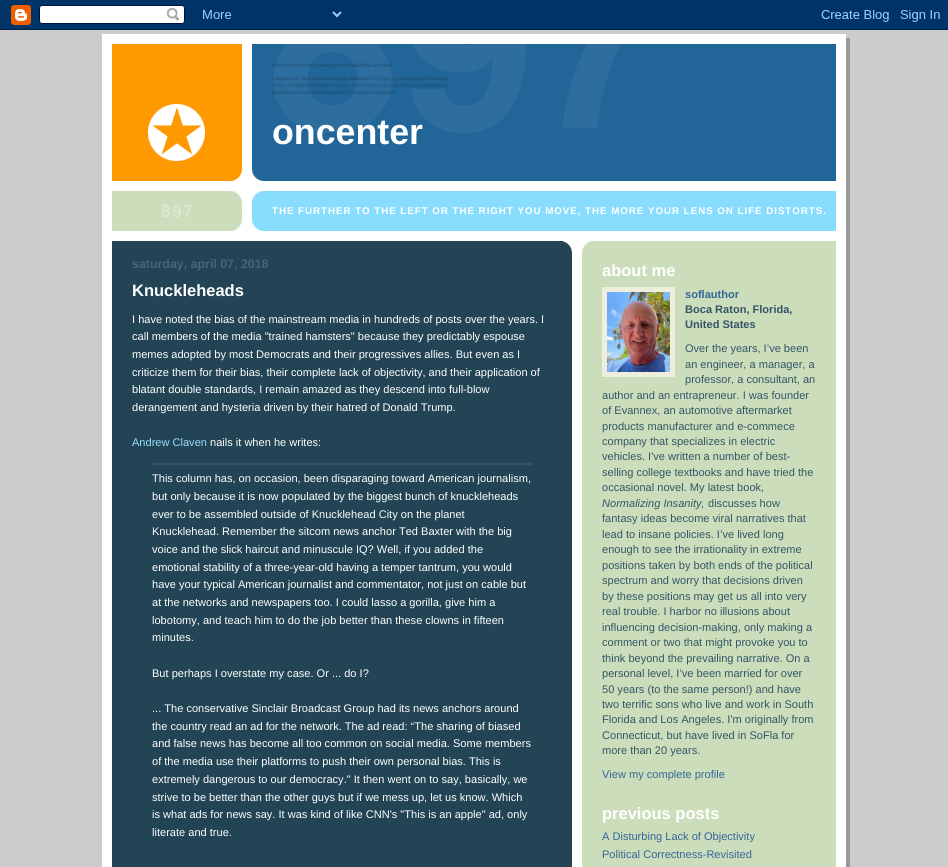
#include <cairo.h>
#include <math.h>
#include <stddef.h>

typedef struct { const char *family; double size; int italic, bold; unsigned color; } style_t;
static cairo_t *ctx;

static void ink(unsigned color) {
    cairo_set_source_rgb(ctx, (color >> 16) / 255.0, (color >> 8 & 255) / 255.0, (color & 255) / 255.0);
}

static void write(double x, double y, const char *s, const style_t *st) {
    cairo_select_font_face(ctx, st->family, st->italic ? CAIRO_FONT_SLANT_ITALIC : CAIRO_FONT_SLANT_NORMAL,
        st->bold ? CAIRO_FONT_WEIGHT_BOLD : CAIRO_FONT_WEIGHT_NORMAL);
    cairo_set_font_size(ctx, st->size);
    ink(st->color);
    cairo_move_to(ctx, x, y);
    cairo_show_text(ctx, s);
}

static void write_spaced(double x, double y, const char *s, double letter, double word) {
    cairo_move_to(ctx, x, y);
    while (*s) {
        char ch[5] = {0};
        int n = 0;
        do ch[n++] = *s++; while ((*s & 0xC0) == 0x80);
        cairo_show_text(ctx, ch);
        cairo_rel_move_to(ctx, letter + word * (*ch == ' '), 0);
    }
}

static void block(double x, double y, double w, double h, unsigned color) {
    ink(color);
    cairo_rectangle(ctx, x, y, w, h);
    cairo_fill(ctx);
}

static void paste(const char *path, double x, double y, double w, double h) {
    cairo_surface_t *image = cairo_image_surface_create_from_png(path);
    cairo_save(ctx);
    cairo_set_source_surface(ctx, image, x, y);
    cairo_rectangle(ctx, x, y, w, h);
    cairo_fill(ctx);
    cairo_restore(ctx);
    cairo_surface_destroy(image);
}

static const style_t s1 = {"Liberation Sans", 35.75, 0, 1, 0xffffff};
static const style_t s2 = {"Liberation Sans", 12.4, 0, 1, 0x446677};
static const style_t s3 = {"Liberation Sans", 16.5, 0, 1, 0xffffff};
static const style_t s4 = {"Liberation Sans", 11.05, 0, 0, 0xffffff};
static const style_t s5 = {"Liberation Sans", 11.05, 0, 0, 0x99ddff};
static const style_t s6 = {"Liberation Sans", 11.05, 0, 1, 0x336699};
static const style_t s7 = {"Liberation Sans", 11.05, 0, 1, 0x335566};
static const style_t s8 = {"Liberation Sans", 11.05, 0, 0, 0x335566};
static const style_t s9 = {"Liberation Sans", 11.05, 1, 0, 0x335566};
static const style_t s10 = {"Liberation Sans", 11.05, 0, 0, 0x336699};

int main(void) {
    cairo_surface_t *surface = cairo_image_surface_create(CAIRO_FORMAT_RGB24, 948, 867);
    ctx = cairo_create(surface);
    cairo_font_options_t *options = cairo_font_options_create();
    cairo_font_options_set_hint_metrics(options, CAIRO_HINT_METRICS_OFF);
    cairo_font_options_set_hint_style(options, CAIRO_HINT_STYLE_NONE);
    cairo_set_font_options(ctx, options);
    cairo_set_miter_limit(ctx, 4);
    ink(0xcccccc);
    cairo_paint(ctx);
    paste("pic1.png", 0, 0, 948, 30);
    block(846, 38, 4, 829, 0x999999);
    block(102, 34, 744, 833, 0xffffff);
    block(252, 44, 584, 137, 0x226699);
    paste("pic2.png", 112, 44, 152, 137);
    paste("pic3.png", 272, 44, 348, 89);
    write(272, 144, "oncenter", &s1);
    block(252, 191, 584, 40, 0x88ddff);
    paste("pic4.png", 112, 191, 152, 40);
    paste("pic5.png", 231, 219, 33, 12);
    paste("pic6.png", 161, 204, 32, 14);
    cairo_set_font_size(ctx, 9.75);
    ink(0xffffff);
    write_spaced(272, 214, "THE FURTHER TO THE LEFT OR THE RIGHT YOU MOVE, THE MORE YOUR LENS ON LIFE DISTORTS.", 0.97, 0);
    paste("pic7.png", 112, 241, 724, 626);
    paste("pic8.png", 563, 241, 9, 12);
    write(132, 268, "saturday, april 07, 2018", &s2);
    write(132, 296, "Knuckleheads", &s3);
    write(132, 323, "I have noted the bias of the mainstream media in hundreds of posts over the years. I", &s4);
    write(132, 340, "call members of the media \"trained hamsters\" because they predictably espouse", &s4);
    write(132, 358, "memes adopted by most Democrats and their progressives allies. But even as I", &s4);
    write(132, 376, "criticize them for their bias, their complete lack of objectivity, and their application of", &s4);
    write(132, 393, "blatant double standards, I remain amazed as they descend into full-blow", &s4);
    write(132, 411, "derangement and hysteria driven by their hatred of Donald Trump.", &s4);
    write(132, 446, "Andrew Claven", &s5);
    write(210, 446, "nails it when he writes:", &s4);
    block(152, 463, 380, 2, 0x335566);
    write(152, 482, "This column has, on occasion, been disparaging toward American journalism,", &s4);
    write(152, 500, "but only because it is now populated by the biggest bunch of knuckleheads", &s4);
    write(152, 518, "ever to be assembled outside of Knucklehead City on the planet", &s4);
    write(152, 535, "Knucklehead. Remember the sitcom news anchor Ted Baxter with the big", &s4);
    write(152, 553, "voice and the slick haircut and minuscule IQ? Well, if you added the", &s4);
    write(152, 571, "emotional stability of a three-year-old having a temper tantrum, you would", &s4);
    write(152, 588, "have your typical American journalist and commentator, not just on cable but", &s4);
    write(152, 606, "at the networks and newspapers too. I could lasso a gorilla, give him a", &s4);
    write(152, 624, "lobotomy, and teach him to do the job better than these clowns in fifteen", &s4);
    write(152, 641, "minutes.", &s4);
    write(152, 677, "But perhaps I overstate my case. Or ... do I?", &s4);
    write(152, 712, "... The conservative Sinclair Broadcast Group had its news anchors around", &s4);
    write(152, 730, "the country read an ad for the network. The ad read: “The sharing of biased", &s4);
    write(152, 747, "and false news has become all too common on social media. Some members", &s4);
    write(152, 765, "of the media use their platforms to push their own personal bias. This is", &s4);
    write(152, 783, "extremely dangerous to our democracy.\" It then went on to say, basically, we", &s4);
    write(152, 801, "strive to be better than the other guys but if we mess up, let us know. Which", &s4);
    write(152, 818, "is what ads for news say. It was kind of like CNN's \"This is an apple\" ad, only", &s4);
    write(152, 836, "literate and true.", &s4);
    paste("pic9.png", 582, 241, 11, 11);
    write(602, 276, "about me", &s3);
    cairo_rectangle(ctx, 604.5, 289.5, 68, 85);
    ink(0xeeeedd);
    cairo_set_line_width(ctx, 5);
    cairo_stroke(ctx);
    paste("pic10.png", 607, 292, 63, 80);
    write(685, 298, "soflauthor", &s6);
    write(685, 313, "Boca Raton, Florida,", &s7);
    write(685, 328, "United States", &s7);
    write(685, 352, "Over the years, I’ve been", &s8);
    write(685, 368, "an engineer, a manager, a", &s8);
    write(685, 383, "professor, a consultant, an", &s8);
    write(602, 399, "author and an entrapreneur. I was founder", &s8);
    write(602, 414, "of Evannex, an automotive aftermarket", &s8);
    write(602, 430, "products manufacturer and e-commece", &s8);
    write(602, 445, "company that specializes in electric", &s8);
    write(602, 460, "vehicles. I've written a number of best-", &s8);
    write(602, 476, "selling college textbooks and have tried the", &s8);
    write(602, 491, "occasional novel. My latest book,", &s8);
    write(602, 507, "Normalizing Insanity,", &s9);
    write(708, 507, "discusses how", &s8);
    write(602, 522, "fantasy ideas become viral narratives that", &s8);
    write(602, 538, "lead to insane policies. I’ve lived long", &s8);
    write(602, 553, "enough to see the irrationality in extreme", &s8);
    write(602, 569, "positions taken by both ends of the political", &s8);
    write(602, 584, "spectrum and worry that decisions driven", &s8);
    write(602, 600, "by these positions may get us all into very", &s8);
    write(602, 615, "real trouble. I harbor no illusions about", &s8);
    write(602, 631, "influencing decision-making, only making a", &s8);
    write(602, 646, "comment or two that might provoke you to", &s8);
    write(602, 662, "think beyond the prevailing narrative. On a", &s8);
    write(602, 677, "personal level, I’ve been married for over", &s8);
    write(602, 693, "50 years (to the same person!) and have", &s8);
    write(602, 708, "two terrific sons who live and work in South", &s8);
    write(602, 723, "Florida and Los Angeles. I'm originally from", &s8);
    write(602, 739, "Connecticut, but have lived in SoFla for", &s8);
    write(602, 754, "more than 20 years.", &s8);
    write(602, 778, "View my complete profile", &s10);
    write(602, 819, "previous posts", &s3);
    write(602, 840, "A Disturbing Lack of Objectivity", &s10);
    write(602, 858, "Political Correctness-Revisited", &s10);
    cairo_surface_write_to_png(surface, "screenshot.png");
    cairo_font_options_destroy(options);
    cairo_destroy(ctx);
    cairo_surface_destroy(surface);
    return 0;
}
